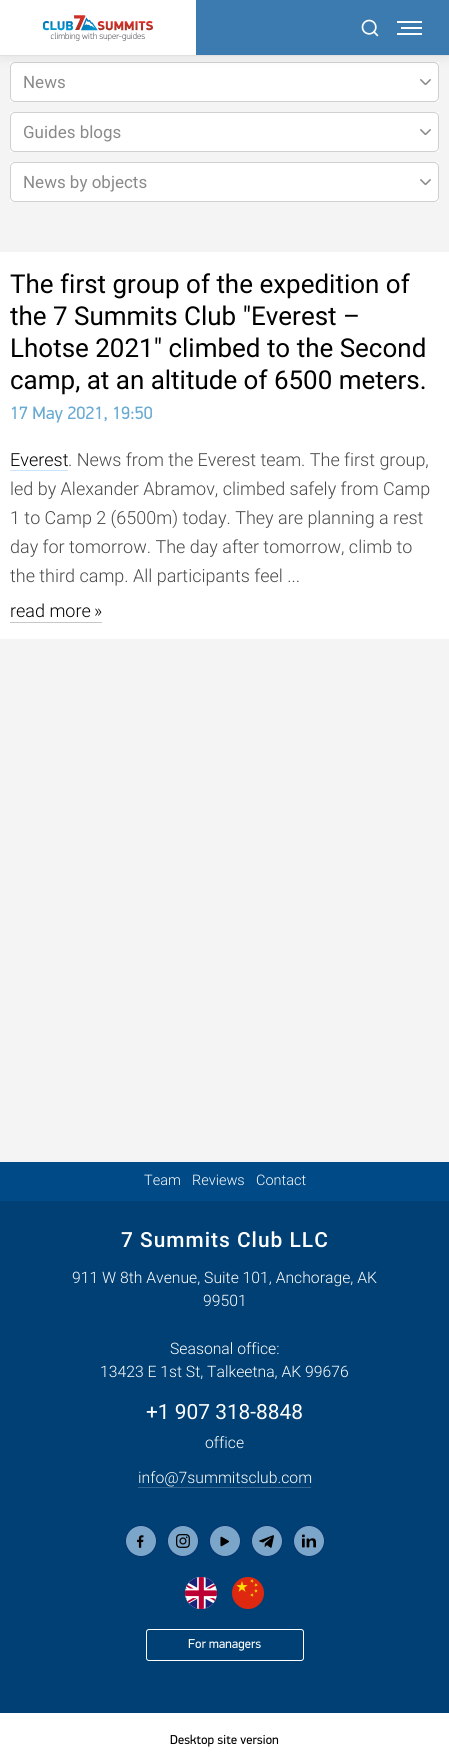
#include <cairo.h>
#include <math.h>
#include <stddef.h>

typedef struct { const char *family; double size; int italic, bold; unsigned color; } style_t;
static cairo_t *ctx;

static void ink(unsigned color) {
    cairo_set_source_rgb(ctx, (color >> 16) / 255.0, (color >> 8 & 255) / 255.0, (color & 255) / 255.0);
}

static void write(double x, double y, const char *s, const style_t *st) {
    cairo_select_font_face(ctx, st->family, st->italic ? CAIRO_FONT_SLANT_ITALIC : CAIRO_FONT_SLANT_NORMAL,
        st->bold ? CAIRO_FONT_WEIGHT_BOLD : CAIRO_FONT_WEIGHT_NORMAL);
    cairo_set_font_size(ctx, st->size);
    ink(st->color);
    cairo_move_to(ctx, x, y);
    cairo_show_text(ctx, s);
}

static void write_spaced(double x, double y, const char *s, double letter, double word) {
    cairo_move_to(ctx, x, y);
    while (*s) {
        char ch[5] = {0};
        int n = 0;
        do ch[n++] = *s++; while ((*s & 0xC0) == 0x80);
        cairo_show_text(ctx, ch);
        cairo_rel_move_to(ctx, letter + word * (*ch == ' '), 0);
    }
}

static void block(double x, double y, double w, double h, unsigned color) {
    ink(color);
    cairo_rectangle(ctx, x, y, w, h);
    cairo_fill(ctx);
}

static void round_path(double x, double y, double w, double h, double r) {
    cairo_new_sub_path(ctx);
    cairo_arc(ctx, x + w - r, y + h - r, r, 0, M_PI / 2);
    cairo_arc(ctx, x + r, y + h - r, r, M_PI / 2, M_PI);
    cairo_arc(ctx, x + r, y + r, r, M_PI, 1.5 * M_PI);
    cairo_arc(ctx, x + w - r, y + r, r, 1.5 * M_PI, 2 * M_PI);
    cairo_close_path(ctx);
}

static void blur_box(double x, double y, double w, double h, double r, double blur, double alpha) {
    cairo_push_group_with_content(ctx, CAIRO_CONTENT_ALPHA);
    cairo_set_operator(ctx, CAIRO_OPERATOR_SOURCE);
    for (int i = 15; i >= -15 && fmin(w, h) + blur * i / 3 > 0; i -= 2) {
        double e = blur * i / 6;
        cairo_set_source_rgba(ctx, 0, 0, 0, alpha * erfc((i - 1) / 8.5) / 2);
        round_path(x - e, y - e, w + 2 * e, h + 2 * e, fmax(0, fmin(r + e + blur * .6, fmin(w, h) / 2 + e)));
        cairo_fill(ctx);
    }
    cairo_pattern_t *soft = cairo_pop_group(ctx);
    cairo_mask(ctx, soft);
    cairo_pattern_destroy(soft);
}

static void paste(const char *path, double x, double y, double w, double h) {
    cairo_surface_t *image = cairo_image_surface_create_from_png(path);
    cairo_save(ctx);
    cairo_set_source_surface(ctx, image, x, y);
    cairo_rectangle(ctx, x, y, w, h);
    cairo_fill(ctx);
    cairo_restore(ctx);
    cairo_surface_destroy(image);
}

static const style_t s1 = {"Roboto", 17, 0, 0, 0x8a8a8a};
static const style_t s2 = {"Roboto", 26, 0, 0, 0x000000};
static const style_t s3 = {"Roboto Light", 18, 0, 0, 0x000000};
static const style_t s4 = {"Roboto Light", 18, 0, 0, 0x474747};
static const style_t s5 = {"Roboto Light", 14.5, 0, 0, 0xffffff};
static const style_t s6 = {"Roboto Light", 15.75, 0, 0, 0xffffff};
static const style_t s7 = {"Roboto", 20.9, 0, 0, 0xffffff};

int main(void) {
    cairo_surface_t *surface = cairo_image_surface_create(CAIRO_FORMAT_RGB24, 449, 1762);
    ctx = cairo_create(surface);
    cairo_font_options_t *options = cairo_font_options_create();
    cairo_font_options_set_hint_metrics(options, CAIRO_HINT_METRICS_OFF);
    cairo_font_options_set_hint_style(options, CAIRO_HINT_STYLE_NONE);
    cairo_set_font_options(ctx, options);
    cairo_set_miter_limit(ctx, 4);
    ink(0xffffff);
    cairo_paint(ctx);
    block(0, 56, 449, 1106, 0xf4f4f4);
    block(10, 62, 429, 40, 0xffffff);
    round_path(10.5, 62.5, 428, 39, 4.5);
    ink(0xd0d0d0);
    cairo_set_line_width(ctx, 1);
    cairo_stroke(ctx);
    ink(0x000000);
    blur_box(0, 2, 449, 56, 0, 6.5, 0.07);
    block(196, 0, 253, 55, 0x3c7baf);
    block(0, 55, 449, 1, 0xe0e0e0);
    block(0, 0, 196, 55, 0xffffff);
    paste("pic1.png", 43, 15, 110, 26);
    paste("pic2.png", 361, 19, 18, 18);
    block(401, 27, 21, 2, 0xffffff);
    block(397, 21, 25, 2, 0xffffff);
    block(397, 33, 25, 2, 0xffffff);
    write(23, 88, "News", &s1);
    paste("pic3.png", 420, 79, 11, 6);
    block(10, 112, 429, 40, 0xffffff);
    round_path(10.5, 112.5, 428, 39, 4.5);
    ink(0xd0d0d0);
    cairo_stroke(ctx);
    write(23, 138, "Guides blogs", &s1);
    paste("pic3.png", 420, 129, 11, 6);
    block(10, 162, 429, 40, 0xffffff);
    round_path(10.5, 162.5, 428, 39, 4.5);
    ink(0xd0d0d0);
    cairo_stroke(ctx);
    write(23, 188, "News by objects", &s1);
    paste("pic3.png", 420, 179, 11, 6);
    block(0, 252, 449, 387, 0xffffff);
    write(10, 293, "The first group of the expedition of", &s2);
    write(10, 325, "the 7 Summits Club \"Everest –", &s2);
    write(10, 357, "Lhotse 2021\" climbed to the Second", &s2);
    write(10, 389, "camp, at an altitude of 6500 meters.", &s2);
    paste("pic4.png", 11, 406, 141, 17);
    write(10, 466, "Everest", &s3);
    block(10, 470, 58, 1, 0xcae3ff);
    write(68, 466, ". News from the Everest team. The first group,", &s4);
    write(10, 495, "led by Alexander Abramov, climbed safely from Camp", &s4);
    write(10, 524, "1 to Camp 2 (6500m) today. They are planning a rest", &s4);
    write(10, 553, "day for tomorrow. The day after tomorrow, climb to", &s4);
    write(10, 582, "the third camp. All participants feel ...", &s4);
    block(10, 622, 92, 1, 0xc7c7c7);
    write(10, 617, "read more", &s3);
    write(94, 617, "»", &s3);
    block(0, 1201, 449, 512, 0x004074);
    block(0, 1162, 449, 39, 0x004a87);
    write(144, 1185, "Team", &s5);
    write(192, 1185, "Reviews", &s5);
    write(256, 1185, "Contact", &s5);
    cairo_select_font_face(ctx, "Roboto Medium", CAIRO_FONT_SLANT_NORMAL, CAIRO_FONT_WEIGHT_NORMAL);
    cairo_set_font_size(ctx, 20.9);
    write_spaced(121, 1247, "7 Summits Club LLC", 1, 0);
    write(72, 1283, "911 W 8th Avenue, Suite 101, Anchorage, AK", &s6);
    write(203, 1306, "99501", &s6);
    write(170, 1354, "Seasonal office:", &s6);
    write(100, 1377, "13423 E 1st St, Talkeetna, AK 99676", &s6);
    write(146, 1419, "+1 907 318-8848", &s7);
    write(205, 1448, "office", &s6);
    write(138, 1483, "info@7summitsclub.com", &s6);
    block(138, 1487, 173, 1, 0x336690);
    ink(0x7ca6c9);
    cairo_new_path(ctx);
    cairo_arc(ctx, 141, 1541, 15.5, 0, 2 * M_PI);
    cairo_fill_preserve(ctx);
    ink(0x03326f);
    cairo_stroke(ctx);
    paste("pic5.png", 137, 1535, 7, 13);
    ink(0x7ca6c9);
    cairo_arc(ctx, 183, 1541, 15.5, 0, 2 * M_PI);
    cairo_fill_preserve(ctx);
    ink(0x03326f);
    cairo_stroke(ctx);
    paste("pic6.png", 176, 1534, 14, 14);
    ink(0x7ca6c9);
    cairo_arc(ctx, 225, 1541, 15.5, 0, 2 * M_PI);
    cairo_fill_preserve(ctx);
    ink(0x03326f);
    cairo_stroke(ctx);
    paste("pic7.png", 220, 1536, 9, 11);
    ink(0x7ca6c9);
    cairo_arc(ctx, 267, 1541, 15.5, 0, 2 * M_PI);
    cairo_fill_preserve(ctx);
    ink(0x03326f);
    cairo_stroke(ctx);
    paste("pic8.png", 259, 1535, 15, 13);
    ink(0x7ca6c9);
    cairo_arc(ctx, 309, 1541, 15.5, 0, 2 * M_PI);
    cairo_fill_preserve(ctx);
    ink(0x03326f);
    cairo_stroke(ctx);
    paste("pic9.png", 302, 1534, 14, 14);
    paste("pic10.png", 185, 1577, 32, 32);
    paste("pic11.png", 232, 1577, 32, 32);
    round_path(146.5, 1629.5, 157, 31, 2.5);
    ink(0xffffff);
    cairo_stroke(ctx);
    paste("pic12.png", 188, 1639, 73, 12);
    paste("pic13.png", 170, 1734, 109, 13);
    cairo_surface_write_to_png(surface, "screenshot.png");
    cairo_font_options_destroy(options);
    cairo_destroy(ctx);
    cairo_surface_destroy(surface);
    return 0;
}
